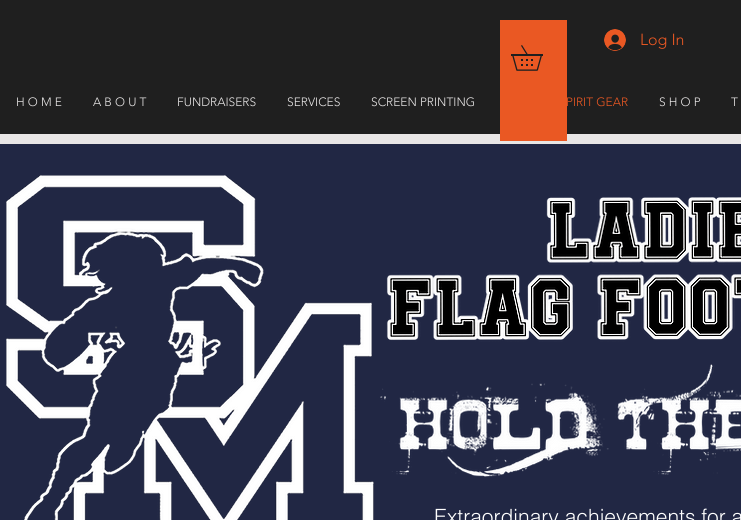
#include <cairo.h>
#include <math.h>
#include <stddef.h>

typedef struct { const char *family; double size; int italic, bold; unsigned color; } style_t;
static cairo_t *ctx;

static void ink(unsigned color) {
    cairo_set_source_rgb(ctx, (color >> 16) / 255.0, (color >> 8 & 255) / 255.0, (color & 255) / 255.0);
}

static void write(double x, double y, const char *s, const style_t *st) {
    cairo_select_font_face(ctx, st->family, st->italic ? CAIRO_FONT_SLANT_ITALIC : CAIRO_FONT_SLANT_NORMAL,
        st->bold ? CAIRO_FONT_WEIGHT_BOLD : CAIRO_FONT_WEIGHT_NORMAL);
    cairo_set_font_size(ctx, st->size);
    ink(st->color);
    cairo_move_to(ctx, x, y);
    cairo_show_text(ctx, s);
}

static void block(double x, double y, double w, double h, unsigned color) {
    ink(color);
    cairo_rectangle(ctx, x, y, w, h);
    cairo_fill(ctx);
}

static void paste(const char *path, double x, double y, double w, double h) {
    cairo_surface_t *image = cairo_image_surface_create_from_png(path);
    cairo_save(ctx);
    cairo_set_source_surface(ctx, image, x, y);
    cairo_rectangle(ctx, x, y, w, h);
    cairo_fill(ctx);
    cairo_restore(ctx);
    cairo_surface_destroy(image);
}

static const style_t s1 = {"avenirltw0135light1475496 Light", 16, 0, 0, 0xea5823};
static const style_t s2 = {"avenirltw0135light1475496 Light", 12, 0, 0, 0xe8e6e6};
static const style_t s3 = {"avenirltw0135light1475496 Light", 12, 0, 0, 0xea5823};
static const style_t s4 = {"helvetica Light", 21, 0, 0, 0xffffff};

int main(void) {
    cairo_surface_t *surface = cairo_image_surface_create(CAIRO_FORMAT_RGB24, 741, 520);
    ctx = cairo_create(surface);
    cairo_font_options_t *options = cairo_font_options_create();
    cairo_font_options_set_hint_metrics(options, CAIRO_HINT_METRICS_OFF);
    cairo_font_options_set_hint_style(options, CAIRO_HINT_STYLE_NONE);
    cairo_set_font_options(ctx, options);
    cairo_set_miter_limit(ctx, 4);
    ink(0xe8e6e6);
    cairo_paint(ctx);
    block(0, 0, 741, 134, 0x1f1f1f);
    block(500, 20, 67, 121, 0xea5823);
    paste("pic1.png", 511, 45, 32, 26);
    paste("pic2.png", 604, 29, 22, 22);
    write(640, 45, "Log In", &s1);
    write(16, 106, "H O M E", &s2);
    write(93, 106, "A B O U T", &s2);
    write(177, 106, "FUNDRAISERS", &s2);
    write(287, 106, "SERVICES", &s2);
    write(371, 106, "SCREEN PRINTING", &s2);
    write(566, 106, "PIRIT GEAR", &s3);
    write(659, 106, "S H O P", &s2);
    write(731, 106, "T", &s2);
    block(0, 144, 741, 376, 0x212744);
    paste("pic3.png", 6, 175, 368, 345);
    paste("pic4.png", 380, 197, 361, 280);
    write(434, 524, "Extraordinary achievements for a", &s4);
    cairo_surface_write_to_png(surface, "screenshot.png");
    cairo_font_options_destroy(options);
    cairo_destroy(ctx);
    cairo_surface_destroy(surface);
    return 0;
}
